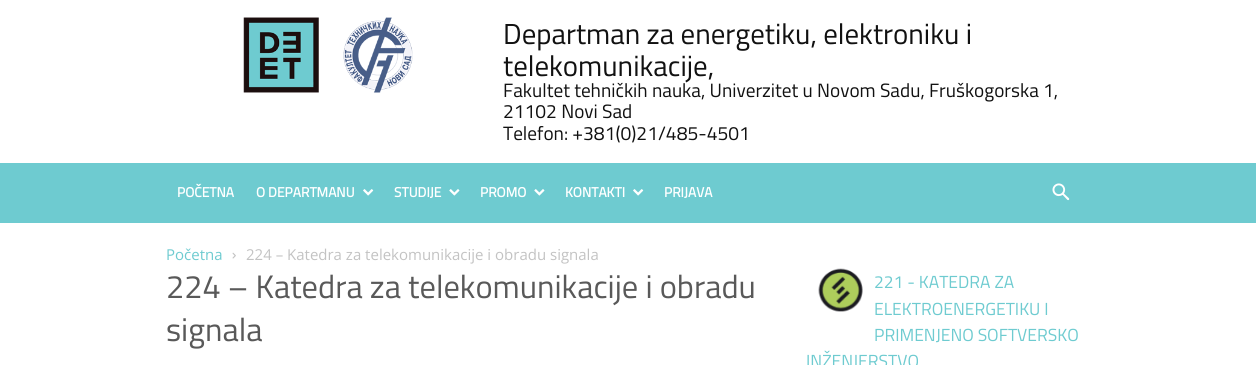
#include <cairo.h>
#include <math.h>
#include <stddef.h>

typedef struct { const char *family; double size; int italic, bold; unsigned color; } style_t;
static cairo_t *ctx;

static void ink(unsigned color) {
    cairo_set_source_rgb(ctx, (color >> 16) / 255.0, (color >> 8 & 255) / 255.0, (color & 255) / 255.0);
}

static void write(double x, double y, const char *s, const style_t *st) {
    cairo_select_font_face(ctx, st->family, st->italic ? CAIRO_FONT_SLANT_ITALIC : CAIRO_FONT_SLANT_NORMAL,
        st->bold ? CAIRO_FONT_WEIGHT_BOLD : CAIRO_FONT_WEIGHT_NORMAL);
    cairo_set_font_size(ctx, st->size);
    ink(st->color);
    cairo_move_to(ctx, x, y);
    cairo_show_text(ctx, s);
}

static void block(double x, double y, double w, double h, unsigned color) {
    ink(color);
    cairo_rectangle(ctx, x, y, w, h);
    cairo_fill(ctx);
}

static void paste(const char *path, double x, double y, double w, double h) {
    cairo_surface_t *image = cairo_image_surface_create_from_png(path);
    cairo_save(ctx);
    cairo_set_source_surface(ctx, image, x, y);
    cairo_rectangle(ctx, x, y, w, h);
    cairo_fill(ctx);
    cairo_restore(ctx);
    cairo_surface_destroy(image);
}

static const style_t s1 = {"Titillium Web", 28.9, 0, 0, 0x111111};
static const style_t s2 = {"Titillium Web", 19.25, 0, 0, 0x111111};
static const style_t s3 = {"Titillium Web", 13.75, 0, 1, 0xffffff};
static const style_t s4 = {"Open Sans", 15, 0, 0, 0x6ecbd0};
static const style_t s5 = {"Open Sans", 15, 0, 0, 0xc3c3c3};
static const style_t s6 = {"Titillium Web", 32.5, 0, 0, 0x595959};
static const style_t s7 = {"Titillium Web", 17.5, 0, 0, 0x6ecbd0};

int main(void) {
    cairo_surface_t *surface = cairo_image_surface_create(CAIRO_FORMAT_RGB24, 1256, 365);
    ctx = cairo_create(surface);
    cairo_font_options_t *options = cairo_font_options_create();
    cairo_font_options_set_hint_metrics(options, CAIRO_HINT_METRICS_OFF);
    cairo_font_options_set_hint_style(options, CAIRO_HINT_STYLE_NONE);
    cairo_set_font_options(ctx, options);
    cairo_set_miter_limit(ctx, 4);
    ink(0xffffff);
    cairo_paint(ctx);
    paste("pic1.png", 243, 17, 170, 76);
    write(503, 44, "Departman za energetiku, elektroniku i", &s1);
    write(503, 76, "telekomunikacije,", &s1);
    write(503, 97, "Fakultet tehničkih nauka, Univerzitet u Novom Sadu, Fruškogorska 1,", &s2);
    write(503, 118, "21102 Novi Sad", &s2);
    write(503, 140, "Telefon: +381(0)21/485-4501", &s2);
    block(0, 163, 1256, 60, 0x6ecbd0);
    write(177, 197, "POČETNA", &s3);
    write(256, 197, "O DEPARTMANU", &s3);
    paste("pic2.png", 363, 189, 11, 7);
    write(394, 197, "STUDIJE", &s3);
    paste("pic3.png", 449, 189, 11, 7);
    write(480, 197, "PROMO", &s3);
    paste("pic3.png", 534, 189, 11, 7);
    write(565, 197, "KONTAKTI", &s3);
    paste("pic2.png", 633, 189, 11, 7);
    write(664, 197, "PRIJAVA", &s3);
    paste("pic4.png", 1052, 183, 18, 18);
    write(166, 260, "Početna", &s4);
    paste("pic5.png", 232, 252, 4, 7);
    write(246, 260, "224 – Katedra za telekomunikacije i obradu signala", &s5);
    write(166, 298, "224 – Katedra za telekomunikacije i obradu", &s6);
    write(166, 341, "signala", &s6);
    paste("pic6.png", 818, 268, 45, 44);
    write(874, 288, "221 - KATEDRA ZA", &s7);
    write(874, 315, "ELEKTROENERGETIKU I", &s7);
    write(874, 341, "PRIMENJENO SOFTVERSKO", &s7);
    write(806, 367, "INŽENJERSTVO", &s7);
    cairo_surface_write_to_png(surface, "screenshot.png");
    cairo_font_options_destroy(options);
    cairo_destroy(ctx);
    cairo_surface_destroy(surface);
    return 0;
}
